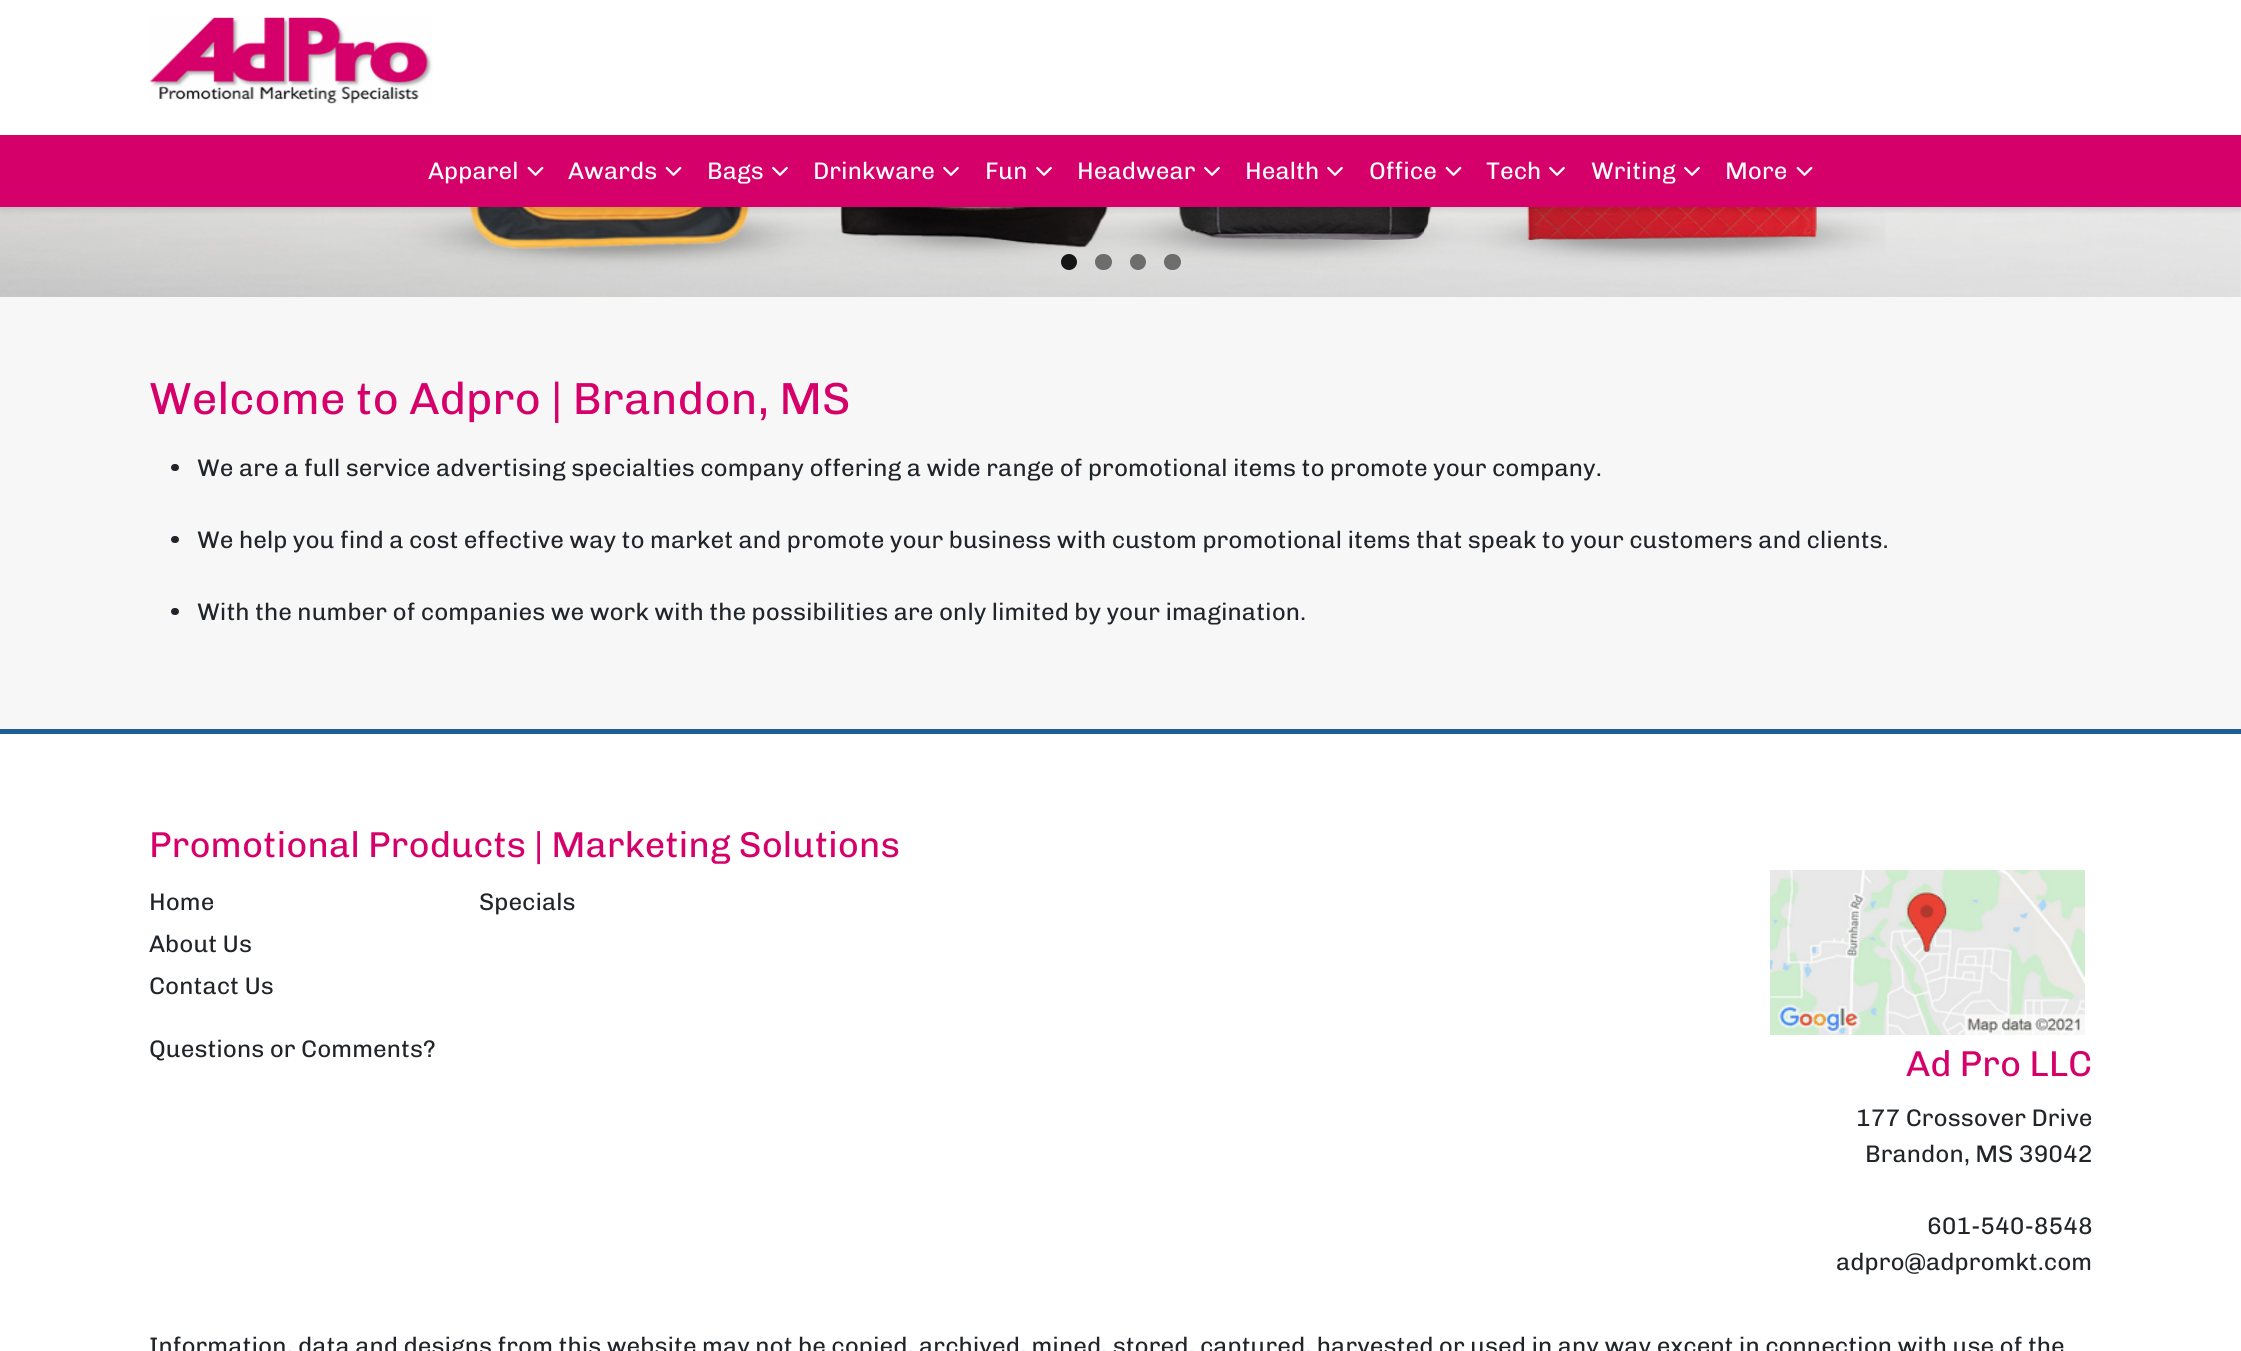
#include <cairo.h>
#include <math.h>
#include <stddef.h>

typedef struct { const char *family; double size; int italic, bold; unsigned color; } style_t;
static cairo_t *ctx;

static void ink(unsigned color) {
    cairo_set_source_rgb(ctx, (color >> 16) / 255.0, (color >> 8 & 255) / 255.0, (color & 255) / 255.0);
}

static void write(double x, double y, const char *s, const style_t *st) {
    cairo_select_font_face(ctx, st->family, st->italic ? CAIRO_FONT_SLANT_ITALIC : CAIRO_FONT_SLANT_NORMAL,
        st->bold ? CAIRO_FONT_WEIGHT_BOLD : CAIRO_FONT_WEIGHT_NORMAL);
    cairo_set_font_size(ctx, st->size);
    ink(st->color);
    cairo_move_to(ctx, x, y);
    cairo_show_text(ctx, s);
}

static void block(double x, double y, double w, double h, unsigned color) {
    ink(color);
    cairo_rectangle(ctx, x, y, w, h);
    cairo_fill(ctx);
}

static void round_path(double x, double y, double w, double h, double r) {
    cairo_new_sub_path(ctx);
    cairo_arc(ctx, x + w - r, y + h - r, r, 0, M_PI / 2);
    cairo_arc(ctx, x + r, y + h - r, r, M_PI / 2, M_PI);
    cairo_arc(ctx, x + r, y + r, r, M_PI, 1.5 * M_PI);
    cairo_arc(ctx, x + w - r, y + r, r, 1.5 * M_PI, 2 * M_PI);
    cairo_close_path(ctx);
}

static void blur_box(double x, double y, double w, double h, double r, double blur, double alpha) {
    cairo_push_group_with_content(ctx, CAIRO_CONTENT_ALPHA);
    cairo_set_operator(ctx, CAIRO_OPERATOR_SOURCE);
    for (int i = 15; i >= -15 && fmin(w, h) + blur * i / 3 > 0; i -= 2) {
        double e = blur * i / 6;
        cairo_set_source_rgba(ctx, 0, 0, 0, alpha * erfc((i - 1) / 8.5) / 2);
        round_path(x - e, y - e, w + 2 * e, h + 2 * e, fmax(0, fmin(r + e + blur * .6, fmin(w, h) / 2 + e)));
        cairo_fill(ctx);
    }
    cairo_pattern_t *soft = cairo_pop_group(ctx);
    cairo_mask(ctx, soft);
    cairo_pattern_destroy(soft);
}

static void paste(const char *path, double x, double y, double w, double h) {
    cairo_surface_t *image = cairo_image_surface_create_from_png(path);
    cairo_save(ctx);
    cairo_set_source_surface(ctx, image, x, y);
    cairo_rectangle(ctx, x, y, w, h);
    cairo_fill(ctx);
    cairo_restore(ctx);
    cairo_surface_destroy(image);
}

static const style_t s1 = {"Chivo Medium", 24, 0, 0, 0xffffff};
static const style_t s2 = {"Chivo Medium", 45, 0, 0, 0xd5006a};
static const style_t s3 = {"Chivo Medium", 24, 0, 0, 0x212529};
static const style_t s4 = {"Chivo Medium", 36, 0, 0, 0xd5006a};

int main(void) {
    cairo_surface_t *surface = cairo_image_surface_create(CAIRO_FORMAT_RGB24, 2241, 1351);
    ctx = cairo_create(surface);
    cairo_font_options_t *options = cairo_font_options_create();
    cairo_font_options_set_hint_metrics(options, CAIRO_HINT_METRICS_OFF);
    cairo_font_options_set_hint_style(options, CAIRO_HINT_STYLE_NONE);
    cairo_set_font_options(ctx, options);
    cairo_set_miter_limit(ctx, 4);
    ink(0xffffff);
    cairo_paint(ctx);
    paste("pic4.png", 0, 207, 2241, 90);
    ink(0x000000);
    blur_box(0, 0, 2241, 207, 0, 4, 0.1);
    block(0, 0, 2241, 135, 0xffffff);
    paste("pic1.png", 149, 17, 284, 87);
    ink(0x000000);
    blur_box(0, 138, 2241, 72, 0, 3, 0.07);
    block(0, 135, 2241, 72, 0xd5006a);
    write(428, 179, "Apparel", &s1);
    paste("pic2.png", 527, 166, 17, 10);
    write(568, 179, "Awards", &s1);
    paste("pic2.png", 665, 166, 17, 10);
    write(707, 179, "Bags", &s1);
    paste("pic3.png", 772, 166, 16, 10);
    write(813, 179, "Drinkware", &s1);
    paste("pic3.png", 943, 166, 16, 10);
    write(985, 179, "Fun", &s1);
    paste("pic3.png", 1036, 166, 16, 10);
    write(1077, 179, "Headwear", &s1);
    paste("pic3.png", 1204, 166, 16, 10);
    write(1245, 179, "Health", &s1);
    paste("pic3.png", 1327, 166, 16, 10);
    write(1369, 179, "Office", &s1);
    paste("pic2.png", 1445, 166, 17, 10);
    write(1486, 179, "Tech", &s1);
    paste("pic3.png", 1549, 166, 16, 10);
    write(1591, 179, "Writing", &s1);
    paste("pic3.png", 1684, 166, 16, 10);
    write(1725, 179, "More", &s1);
    paste("pic2.png", 1796, 166, 17, 10);
    cairo_set_source_rgba(ctx, 0, 0, 0, 0.9);
    cairo_arc(ctx, 1069, 262, 8, 0, 2 * M_PI);
    cairo_fill(ctx);
    cairo_set_source_rgba(ctx, 0, 0, 0, 0.5);
    round_path(1095, 254, 17, 16, 8);
    cairo_fill(ctx);
    cairo_arc(ctx, 1138, 262, 8, 0, 2 * M_PI);
    cairo_fill(ctx);
    round_path(1164, 254, 17, 16, 8);
    cairo_fill(ctx);
    block(0, 297, 2241, 432, 0xf7f7f7);
    write(149, 414, "Welcome to Adpro | Brandon, MS", &s2);
    ink(0x212529);
    round_path(171, 464, 8, 7, 3.5);
    cairo_fill(ctx);
    write(197, 476, "We are a full service advertising specialties company offering a wide range of promotional items to promote your company.", &s3);
    round_path(171, 536, 8, 7, 3.5);
    cairo_fill(ctx);
    write(197, 548, "We help you find a cost effective way to market and promote your business with custom promotional items that speak to your customers and clients.", &s3);
    round_path(171, 608, 8, 7, 3.5);
    cairo_fill(ctx);
    write(197, 620, "With the number of companies we work with the possibilities are only limited by your imagination.", &s3);
    block(0, 729, 2241, 5, 0x1c5f96);
    write(149, 857, "Promotional Products | Marketing Solutions", &s4);
    write(149, 910, "Home", &s3);
    write(149, 952, "About Us", &s3);
    write(149, 994, "Contact Us", &s3);
    write(479, 910, "Specials", &s3);
    write(149, 1057, "Questions or Comments?", &s3);
    paste("pic5.png", 1770, 870, 315, 165);
    write(1906, 1076, "Ad Pro LLC", &s4);
    write(1856, 1126, "177 Crossover Drive", &s3);
    write(1865, 1162, "Brandon, MS 39042", &s3);
    write(1927, 1234, "601-540-8548", &s3);
    write(1836, 1270, "adpro@adpromkt.com", &s3);
    write(149, 1354, "Information, data and designs from this website may not be copied, archived, mined, stored, captured, harvested or used in any way except in connection with use of the", &s3);
    cairo_surface_write_to_png(surface, "screenshot.png");
    cairo_font_options_destroy(options);
    cairo_destroy(ctx);
    cairo_surface_destroy(surface);
    return 0;
}
